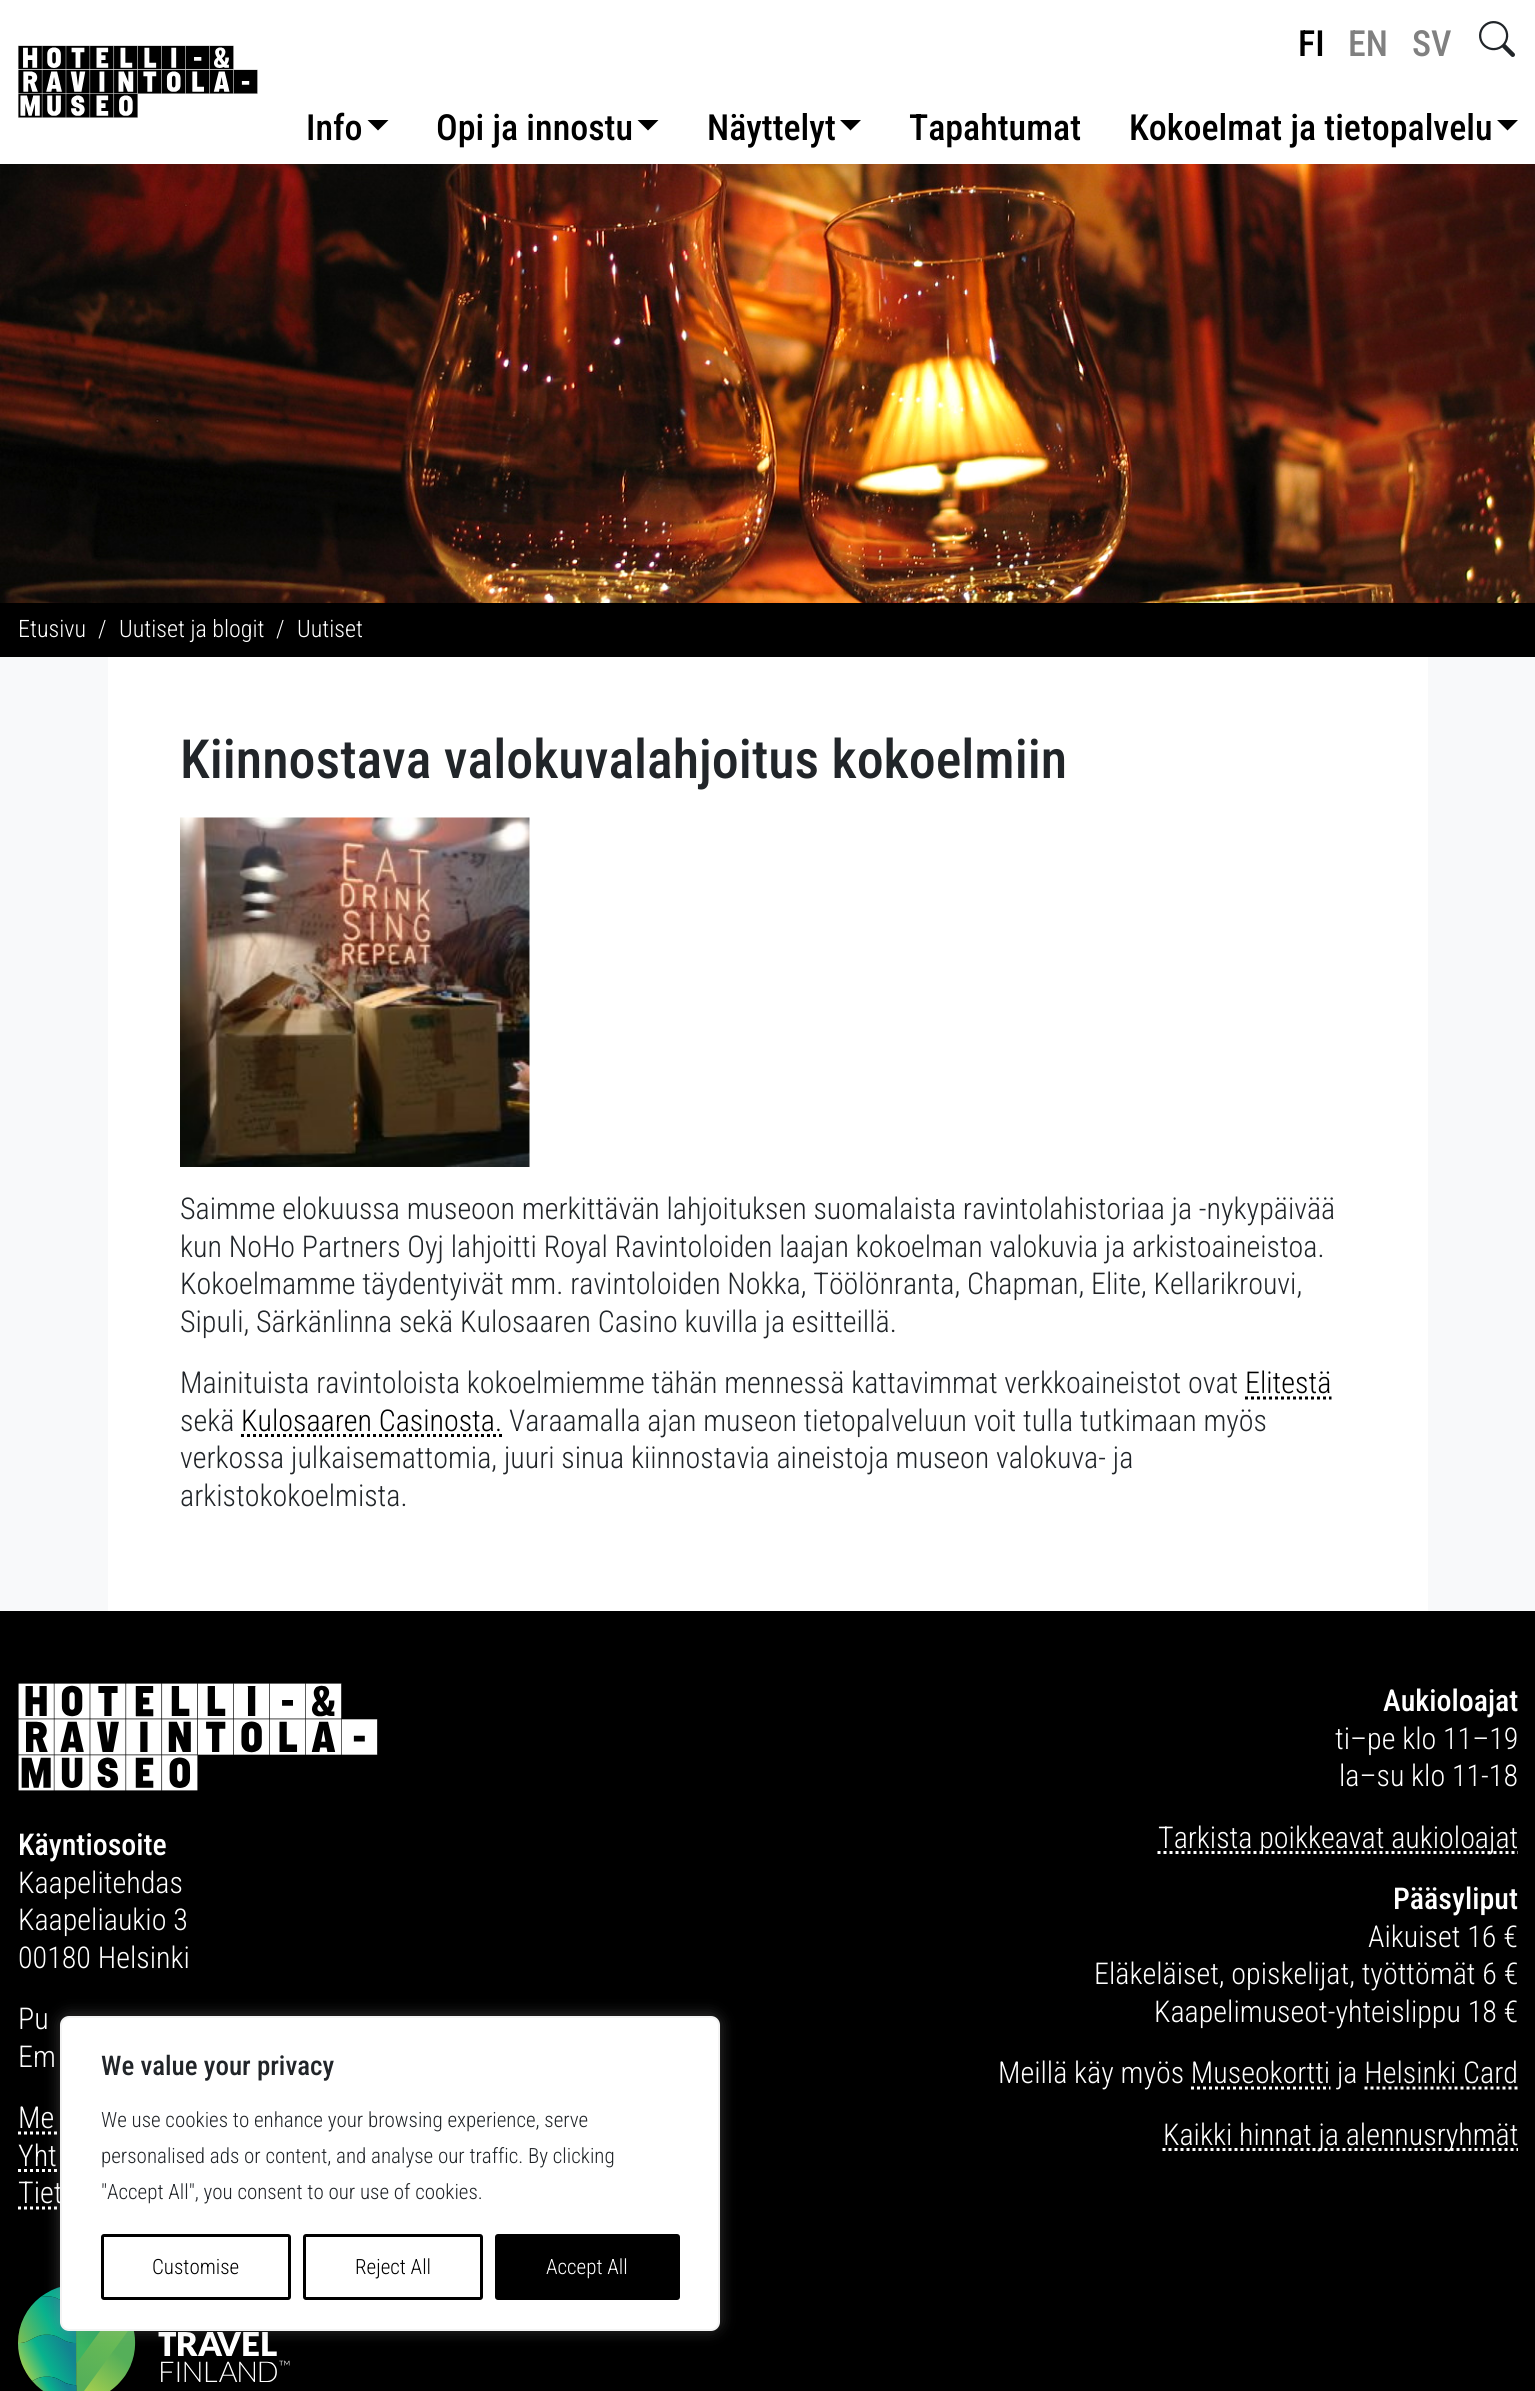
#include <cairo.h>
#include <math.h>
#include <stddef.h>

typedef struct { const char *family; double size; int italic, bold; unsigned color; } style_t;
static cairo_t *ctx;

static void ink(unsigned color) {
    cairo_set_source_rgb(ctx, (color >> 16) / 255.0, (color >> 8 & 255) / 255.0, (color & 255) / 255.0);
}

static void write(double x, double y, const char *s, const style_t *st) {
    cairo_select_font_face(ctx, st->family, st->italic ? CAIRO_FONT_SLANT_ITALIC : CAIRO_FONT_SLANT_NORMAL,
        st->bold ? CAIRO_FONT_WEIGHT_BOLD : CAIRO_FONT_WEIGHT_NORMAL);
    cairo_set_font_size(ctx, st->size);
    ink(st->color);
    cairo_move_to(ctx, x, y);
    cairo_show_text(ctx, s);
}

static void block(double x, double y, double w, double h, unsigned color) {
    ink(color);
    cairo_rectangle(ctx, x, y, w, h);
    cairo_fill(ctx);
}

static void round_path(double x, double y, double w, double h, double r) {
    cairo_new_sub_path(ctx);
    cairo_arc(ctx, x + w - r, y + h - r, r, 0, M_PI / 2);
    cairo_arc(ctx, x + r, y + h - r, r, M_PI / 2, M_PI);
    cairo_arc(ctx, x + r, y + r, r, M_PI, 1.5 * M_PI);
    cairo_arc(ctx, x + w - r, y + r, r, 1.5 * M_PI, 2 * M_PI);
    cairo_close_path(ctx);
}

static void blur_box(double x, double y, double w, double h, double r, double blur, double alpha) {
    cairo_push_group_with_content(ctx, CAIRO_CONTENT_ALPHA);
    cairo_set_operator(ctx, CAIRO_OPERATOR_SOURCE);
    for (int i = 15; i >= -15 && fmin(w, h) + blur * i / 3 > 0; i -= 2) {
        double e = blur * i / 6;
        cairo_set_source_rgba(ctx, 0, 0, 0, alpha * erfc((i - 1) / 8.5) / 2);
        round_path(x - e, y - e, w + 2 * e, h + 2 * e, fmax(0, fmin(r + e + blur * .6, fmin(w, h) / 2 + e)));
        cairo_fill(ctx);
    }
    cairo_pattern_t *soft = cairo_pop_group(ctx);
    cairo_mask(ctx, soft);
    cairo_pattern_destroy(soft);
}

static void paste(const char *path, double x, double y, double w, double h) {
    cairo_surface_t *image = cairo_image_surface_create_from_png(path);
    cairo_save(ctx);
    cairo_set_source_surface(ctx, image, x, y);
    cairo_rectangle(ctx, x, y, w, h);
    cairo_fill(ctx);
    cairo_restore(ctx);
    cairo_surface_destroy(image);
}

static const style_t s1 = {"Roboto Condensed Medium", 36, 0, 0, 0x000000};
static const style_t s2 = {"Roboto Condensed Medium", 36, 0, 0, 0x808080};
static const style_t s3 = {"Roboto Condensed Light", 24, 0, 0, 0xffffff};
static const style_t s4 = {"Roboto Condensed Medium", 54, 0, 0, 0x212529};
static const style_t s5 = {"Roboto Condensed Light", 30, 0, 0, 0x212529};
static const style_t s6 = {"Roboto Condensed Light", 30, 0, 0, 0x000000};
static const style_t s7 = {"Roboto Condensed Medium", 30, 0, 0, 0xffffff};
static const style_t s8 = {"Roboto Condensed Light", 30, 0, 0, 0xffffff};
static const style_t s9 = {"Roboto Condensed Medium", 27, 0, 0, 0x212529};
static const style_t s10 = {"Roboto Condensed Light", 21, 0, 0, 0x212529};
static const style_t s11 = {"Roboto Condensed Light", 21, 0, 0, 0x000000};
static const style_t s12 = {"Roboto Condensed Light", 21, 0, 0, 0xffffff};

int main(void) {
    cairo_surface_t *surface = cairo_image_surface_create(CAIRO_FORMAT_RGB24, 1535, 2391);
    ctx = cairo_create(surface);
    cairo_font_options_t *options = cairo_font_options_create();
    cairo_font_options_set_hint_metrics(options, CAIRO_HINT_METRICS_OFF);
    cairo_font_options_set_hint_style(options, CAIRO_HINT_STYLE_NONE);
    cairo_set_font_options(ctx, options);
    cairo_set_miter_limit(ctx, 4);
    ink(0xf8f9fa);
    cairo_paint(ctx);
    block(0, 0, 1535, 164, 0xffffff);
    paste("pic1.png", 18, 45, 240, 73);
    write(1298, 56, "FI", &s1);
    write(1348, 56, "EN", &s2);
    write(1412, 56, "SV", &s2);
    paste("pic2.png", 1479, 21, 36, 36);
    write(306, 140, "Info", &s1);
    cairo_new_path(ctx);
    cairo_move_to(ctx, 367.5, 120);
    cairo_line_to(ctx, 388.5, 120);
    cairo_line_to(ctx, 378, 130.5);
    cairo_close_path(ctx);
    cairo_fill(ctx);
    write(436, 140, "Opi ja innostu", &s1);
    cairo_new_path(ctx);
    cairo_move_to(ctx, 637.5, 120);
    cairo_line_to(ctx, 658.5, 120);
    cairo_line_to(ctx, 648, 130.5);
    cairo_close_path(ctx);
    cairo_fill(ctx);
    write(707, 140, "Näyttelyt", &s1);
    cairo_new_path(ctx);
    cairo_move_to(ctx, 840, 120);
    cairo_line_to(ctx, 861, 120);
    cairo_line_to(ctx, 850.5, 130.5);
    cairo_close_path(ctx);
    cairo_fill(ctx);
    write(909, 140, "Tapahtumat", &s1);
    write(1129, 140, "Kokoelmat ja tietopalvelu", &s1);
    cairo_new_path(ctx);
    cairo_move_to(ctx, 1497, 120);
    cairo_line_to(ctx, 1518, 120);
    cairo_line_to(ctx, 1507.5, 130.5);
    cairo_close_path(ctx);
    cairo_fill(ctx);
    paste("pic3.png", 0, 164, 1535, 439);
    block(0, 603, 1535, 54, 0x000000);
    write(18, 637, "Etusivu", &s3);
    write(98, 637, "/", &s3);
    write(119, 637, "Uutiset ja blogit", &s3);
    write(276, 637, "/", &s3);
    write(297, 637, "Uutiset", &s3);
    block(108, 657, 1320, 954, 0xffffff);
    write(180, 778, "Kiinnostava valokuvalahjoitus kokoelmiin", &s4);
    paste("pic4.png", 180, 817, 350, 350);
    write(180, 1219, "Saimme elokuussa museoon merkittävän lahjoituksen suomalaista ravintolahistoriaa ja -nykypäivää", &s5);
    write(180, 1257, "kun NoHo Partners Oyj lahjoitti Royal Ravintoloiden laajan kokoelman valokuvia ja arkistoaineistoa.", &s5);
    write(180, 1294, "Kokoelmamme täydentyivät mm. ravintoloiden Nokka, Töölönranta, Chapman, Elite, Kellarikrouvi,", &s5);
    write(180, 1332, "Sipuli, Särkänlinna sekä Kulosaaren Casino kuvilla ja esitteillä.", &s5);
    write(180, 1393, "Mainituista ravintoloista kokoelmiemme tähän mennessä kattavimmat verkkoaineistot ovat", &s5);
    write(1245, 1393, "Elitestä", &s6);
    cairo_new_path(ctx);
    cairo_move_to(ctx, 1245, 1398);
    cairo_line_to(ctx, 1331.5, 1398);
    cairo_set_line_width(ctx, 3);
    cairo_set_dash(ctx, (double[]){3, 3}, 2, 0);
    cairo_stroke(ctx);
    write(180, 1431, "sekä", &s5);
    write(241, 1431, "Kulosaaren Casinosta.", &s6);
    cairo_new_path(ctx);
    cairo_move_to(ctx, 241, 1435.5);
    cairo_line_to(ctx, 502, 1435.5);
    cairo_stroke(ctx);
    write(509, 1431, "Varaamalla ajan museon tietopalveluun voit tulla tutkimaan myös", &s5);
    write(180, 1468, "verkossa julkaisemattomia, juuri sinua kiinnostavia aineistoja museon valokuva- ja", &s5);
    write(180, 1506, "arkistokokoelmista.", &s5);
    block(0, 1611, 1535, 780, 0x000000);
    paste("pic5.png", 18, 1683, 360, 108);
    write(18, 1855, "Käyntiosoite", &s7);
    write(18, 1893, "Kaapelitehdas", &s8);
    write(18, 1930, "Kaapeliaukio 3", &s8);
    write(18, 1968, "00180 Helsinki", &s8);
    write(18, 2029, "Pu", &s8);
    write(18, 2067, "Em", &s8);
    write(18, 2128, "Me", &s8);
    cairo_new_path(ctx);
    cairo_move_to(ctx, 18, 2133);
    cairo_line_to(ctx, 115.5, 2133);
    cairo_stroke(ctx);
    write(18, 2166, "Yht", &s8);
    cairo_new_path(ctx);
    cairo_move_to(ctx, 18, 2170.5);
    cairo_line_to(ctx, 163.5, 2170.5);
    cairo_stroke(ctx);
    write(18, 2203, "Tiet", &s8);
    cairo_new_path(ctx);
    cairo_move_to(ctx, 18, 2208);
    cairo_line_to(ctx, 255, 2208);
    cairo_stroke(ctx);
    paste("pic6.png", 18, 2287, 272, 104);
    write(1383, 1711, "Aukioloajat", &s7);
    write(1335, 1749, "ti–pe klo 11–19", &s8);
    write(1339, 1786, "la–su klo 11-18", &s8);
    cairo_new_path(ctx);
    cairo_move_to(ctx, 1157.5, 1852.5);
    cairo_line_to(ctx, 1518, 1852.5);
    cairo_stroke(ctx);
    write(1158, 1848, "Tarkista poikkeavat aukioloajat", &s8);
    write(1393, 1909, "Pääsyliput", &s7);
    write(1368, 1947, "Aikuiset 16 €", &s8);
    write(1094, 1984, "Eläkeläiset, opiskelijat, työttömät 6 €", &s8);
    write(1154, 2022, "Kaapelimuseot-yhteislippu 18 €", &s8);
    write(998, 2083, "Meillä käy myös Museokortti ja Helsinki Card", &s8);
    cairo_new_path(ctx);
    cairo_move_to(ctx, 1191, 2088);
    cairo_line_to(ctx, 1330.5, 2088);
    cairo_stroke(ctx);
    cairo_new_path(ctx);
    cairo_move_to(ctx, 1364.5, 2088);
    cairo_line_to(ctx, 1518, 2088);
    cairo_stroke(ctx);
    cairo_new_path(ctx);
    cairo_move_to(ctx, 1162.5, 2149.5);
    cairo_line_to(ctx, 1518, 2149.5);
    cairo_stroke(ctx);
    write(1163, 2145, "Kaikki hinnat ja alennusryhmät", &s8);
    ink(0xacabab);
    blur_box(60, 2015, 660, 315, 9, 7.5, 0.3);
    ink(0xffffff);
    round_path(61, 2017, 658, 313, 8);
    cairo_fill_preserve(ctx);
    ink(0xf4f4f4);
    cairo_set_line_width(ctx, 2);
    cairo_set_dash(ctx, NULL, 0, 0);
    cairo_stroke(ctx);
    write(101, 2075, "We value your privacy", &s9);
    write(101, 2127, "We use cookies to enhance your browsing experience, serve", &s10);
    write(101, 2163, "personalised ads or content, and analyse our traffic. By clicking", &s10);
    write(101, 2199, "\"Accept All\", you consent to our use of cookies.", &s10);
    round_path(102.5, 2235.5, 187, 63, 1.5);
    ink(0x000000);
    cairo_set_line_width(ctx, 3);
    cairo_stroke(ctx);
    write(152, 2274, "Customise", &s11);
    round_path(304.5, 2235.5, 177, 63, 1.5);
    cairo_stroke(ctx);
    write(355, 2274, "Reject All", &s11);
    round_path(496.5, 2235.5, 182, 63, 1.5);
    cairo_fill_preserve(ctx);
    cairo_stroke(ctx);
    write(546, 2274, "Accept All", &s12);
    cairo_surface_write_to_png(surface, "screenshot.png");
    cairo_font_options_destroy(options);
    cairo_destroy(ctx);
    cairo_surface_destroy(surface);
    return 0;
}
